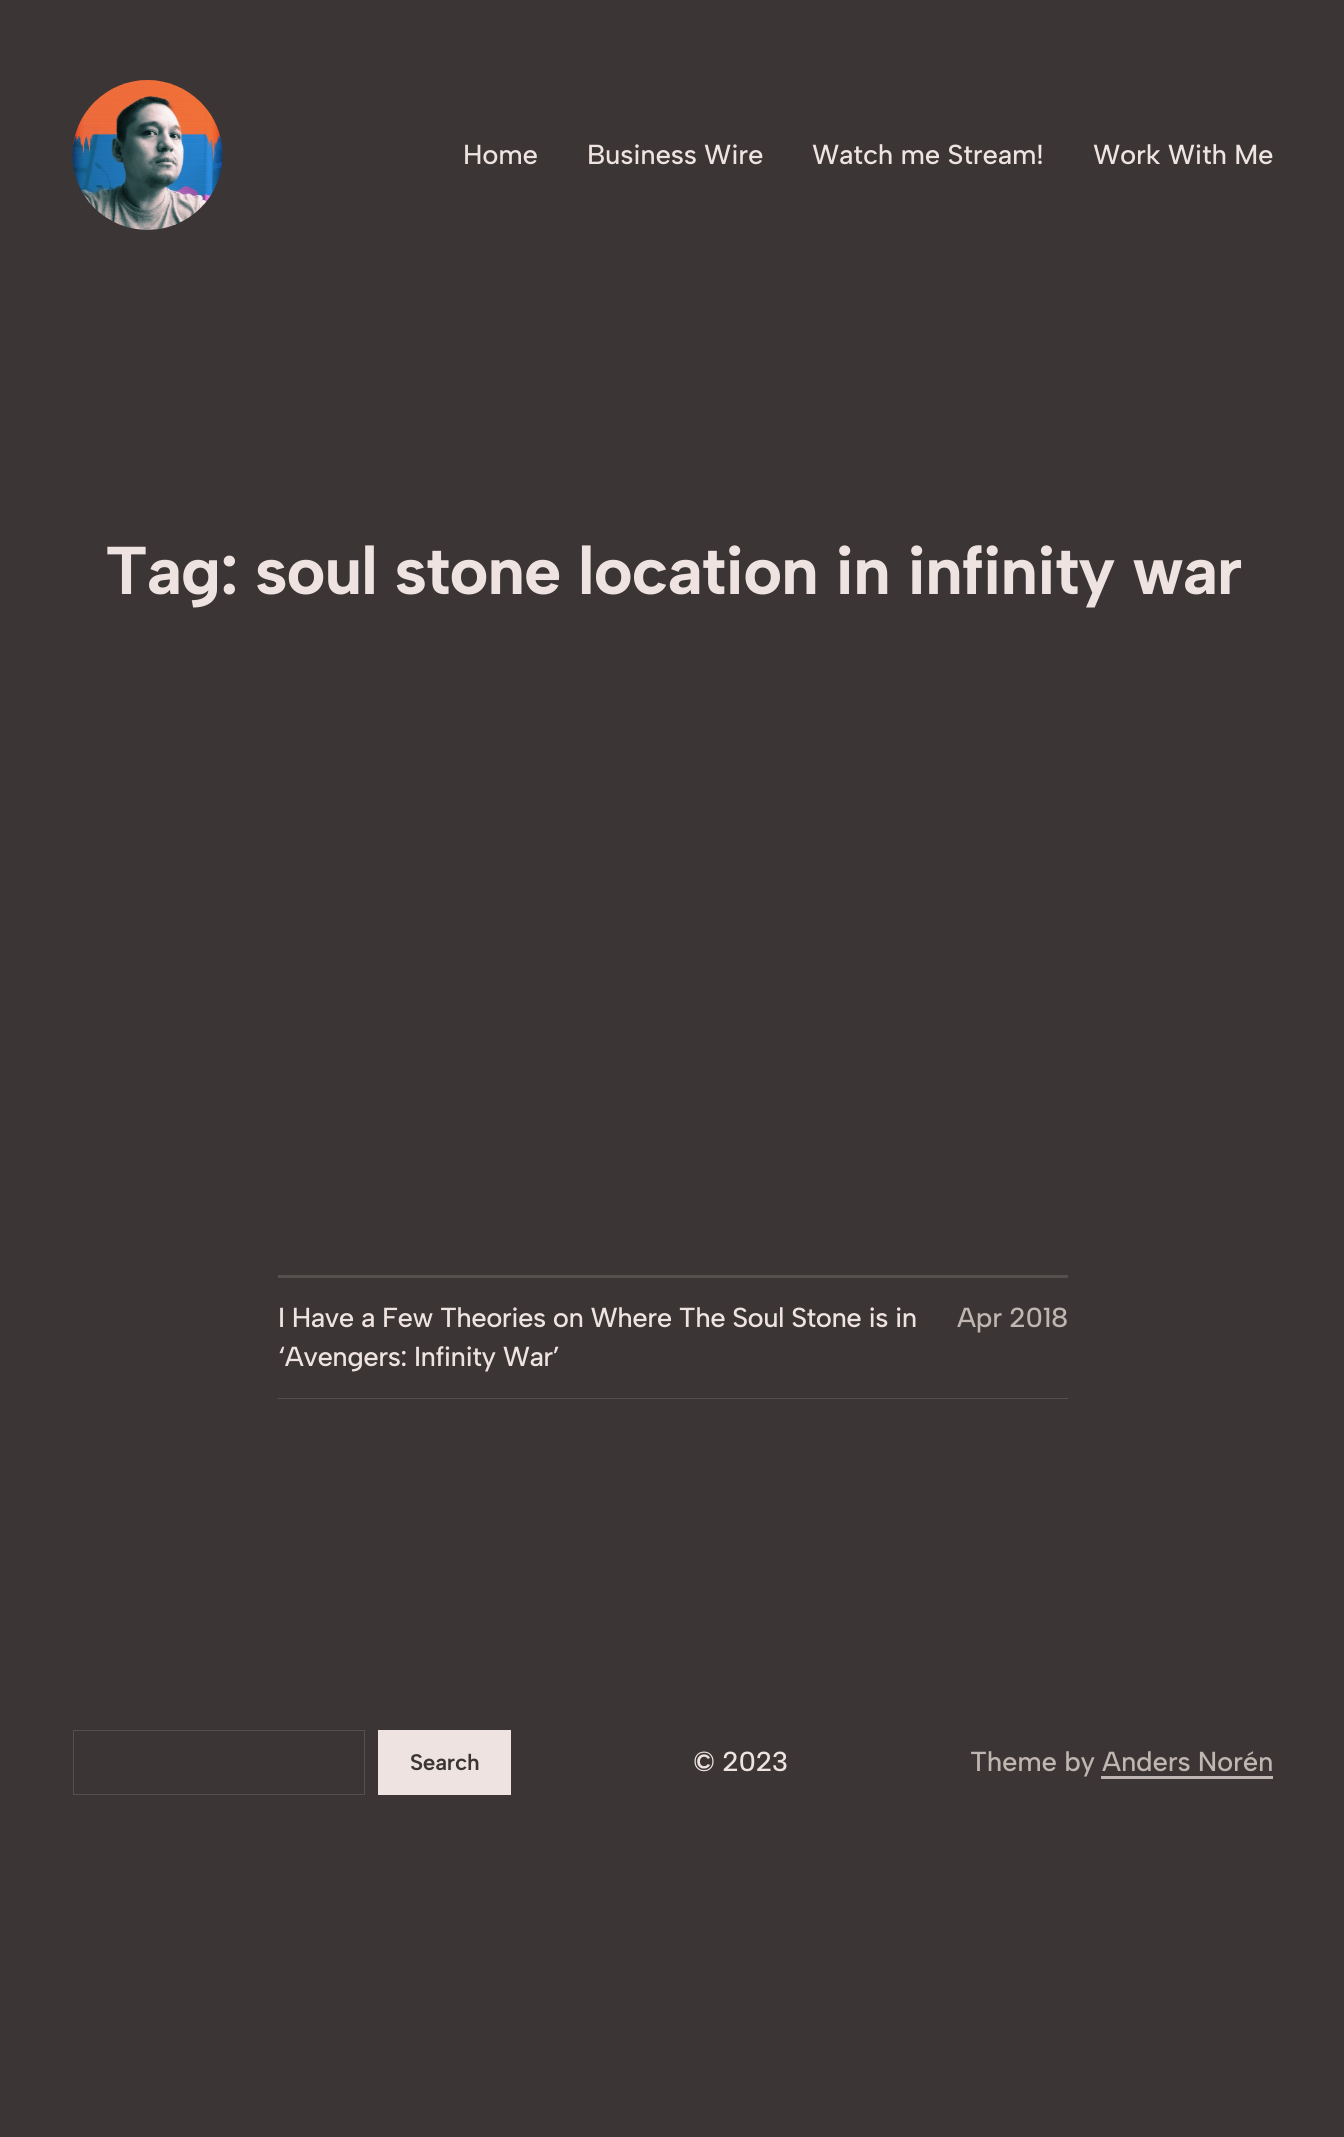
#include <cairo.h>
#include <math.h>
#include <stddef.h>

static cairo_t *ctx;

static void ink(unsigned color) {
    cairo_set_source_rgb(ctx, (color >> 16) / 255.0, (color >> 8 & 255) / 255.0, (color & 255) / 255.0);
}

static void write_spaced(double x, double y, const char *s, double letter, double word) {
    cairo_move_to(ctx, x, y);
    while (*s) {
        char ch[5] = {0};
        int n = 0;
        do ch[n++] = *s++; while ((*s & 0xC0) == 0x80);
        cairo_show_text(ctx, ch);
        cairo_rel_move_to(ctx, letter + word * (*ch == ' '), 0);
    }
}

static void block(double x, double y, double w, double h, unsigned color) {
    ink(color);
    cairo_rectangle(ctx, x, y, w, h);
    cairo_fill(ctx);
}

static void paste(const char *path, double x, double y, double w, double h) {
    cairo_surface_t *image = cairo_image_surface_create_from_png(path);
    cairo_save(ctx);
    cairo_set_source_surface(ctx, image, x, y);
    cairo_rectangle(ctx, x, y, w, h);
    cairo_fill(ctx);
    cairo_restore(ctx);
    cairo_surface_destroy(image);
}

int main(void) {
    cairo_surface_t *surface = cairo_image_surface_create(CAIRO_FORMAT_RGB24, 1344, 2137);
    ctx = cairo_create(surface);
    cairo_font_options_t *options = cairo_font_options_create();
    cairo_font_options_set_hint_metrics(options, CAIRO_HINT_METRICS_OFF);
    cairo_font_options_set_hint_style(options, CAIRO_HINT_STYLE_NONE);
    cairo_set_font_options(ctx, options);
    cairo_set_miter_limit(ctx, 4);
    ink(0x3b3635);
    cairo_paint(ctx);
    paste("pic1.png", 72, 80, 151, 150);
    cairo_select_font_face(ctx, "Albert Sans Medium", CAIRO_FONT_SLANT_NORMAL, CAIRO_FONT_WEIGHT_NORMAL);
    cairo_set_font_size(ctx, 27.5);
    ink(0xeee3e0);
    write_spaced(463, 164, "Home", -0.25, 0);
    write_spaced(587, 164, "Business Wire", -0.25, 0);
    write_spaced(812, 164, "Watch me Stream!", -0.25, 0);
    write_spaced(1093, 164, "Work With Me", -0.25, 0);
    cairo_select_font_face(ctx, "Albert Sans", CAIRO_FONT_SLANT_NORMAL, CAIRO_FONT_WEIGHT_BOLD);
    cairo_set_font_size(ctx, 67.5);
    write_spaced(105, 594, "Tag: soul stone location in infinity war", -1.35, 0);
    block(278, 1398, 790, 1, 0x56504f);
    block(278, 1275, 790, 3, 0x56504f);
    cairo_select_font_face(ctx, "Albert Sans Medium", CAIRO_FONT_SLANT_NORMAL, CAIRO_FONT_WEIGHT_NORMAL);
    cairo_set_font_size(ctx, 27.5);
    ink(0xeee3e0);
    write_spaced(278, 1327, "I Have a Few Theories on Where The Soul Stone is in", -0.55, 0);
    write_spaced(278, 1366, "‘Avengers: Infinity War’", -0.55, 0);
    ink(0xc0b6b1);
    write_spaced(957, 1327, "Apr 2018", -0.25, 0);
    cairo_rectangle(ctx, 73.5, 1730.5, 291, 64);
    ink(0x56504f);
    cairo_set_line_width(ctx, 1);
    cairo_stroke(ctx);
    block(378, 1730, 133, 65, 0xeee3e0);
    cairo_select_font_face(ctx, "Albert Sans SemiBold", CAIRO_FONT_SLANT_NORMAL, CAIRO_FONT_WEIGHT_NORMAL);
    cairo_set_font_size(ctx, 22.5);
    ink(0x3b3635);
    write_spaced(410, 1770, "Search", -0.25, 0);
    cairo_select_font_face(ctx, "Albert Sans Medium", CAIRO_FONT_SLANT_NORMAL, CAIRO_FONT_WEIGHT_NORMAL);
    cairo_set_font_size(ctx, 27.5);
    ink(0xeee3e0);
    write_spaced(693, 1771, "© 2023", -0.25, 0);
    ink(0xc0b6b1);
    write_spaced(970, 1771, "Theme by Anders Norén", -0.25, 0);
    block(1101, 1776, 172, 3, 0xc0b6b1);
    cairo_surface_write_to_png(surface, "screenshot.png");
    cairo_font_options_destroy(options);
    cairo_destroy(ctx);
    cairo_surface_destroy(surface);
    return 0;
}
